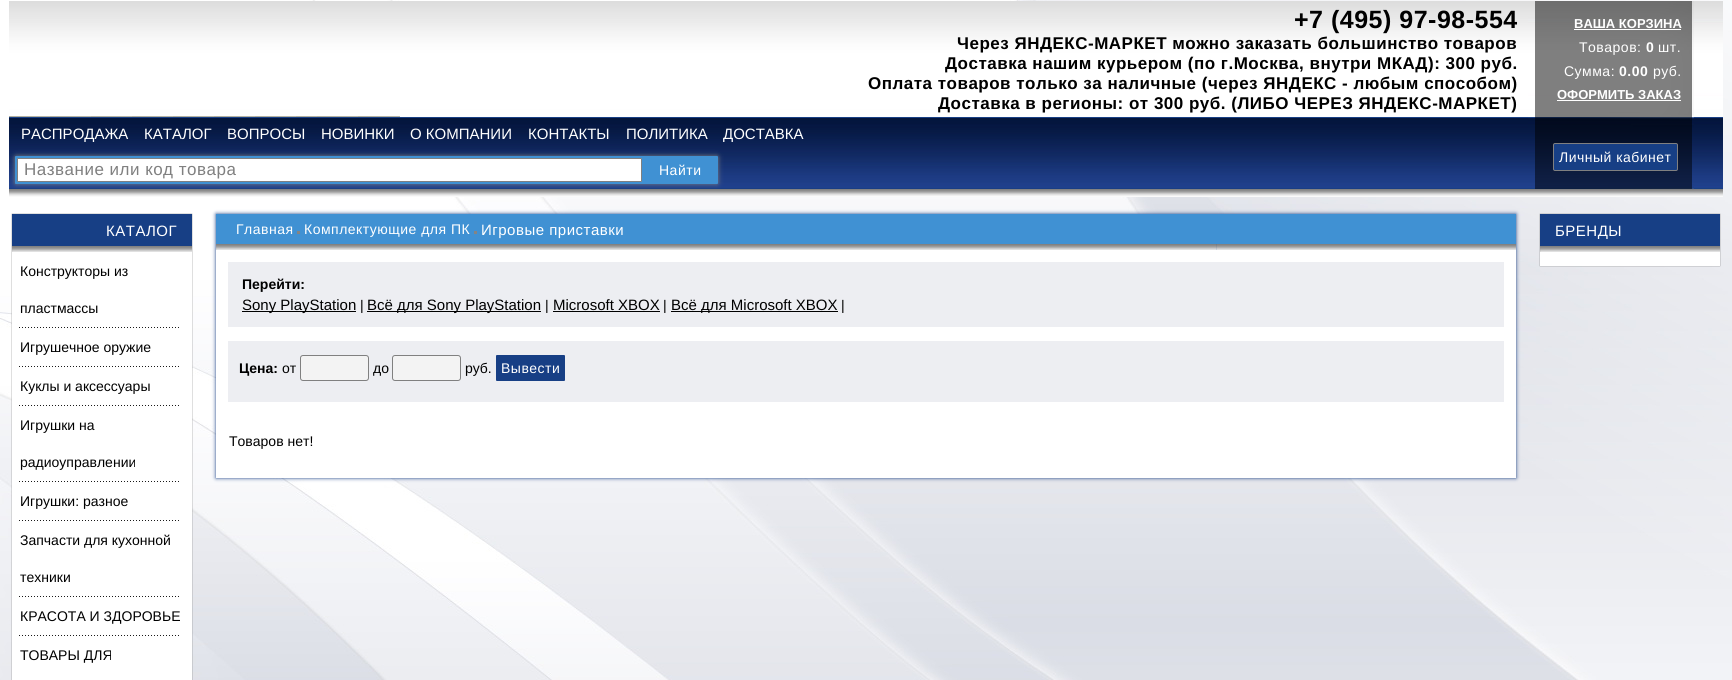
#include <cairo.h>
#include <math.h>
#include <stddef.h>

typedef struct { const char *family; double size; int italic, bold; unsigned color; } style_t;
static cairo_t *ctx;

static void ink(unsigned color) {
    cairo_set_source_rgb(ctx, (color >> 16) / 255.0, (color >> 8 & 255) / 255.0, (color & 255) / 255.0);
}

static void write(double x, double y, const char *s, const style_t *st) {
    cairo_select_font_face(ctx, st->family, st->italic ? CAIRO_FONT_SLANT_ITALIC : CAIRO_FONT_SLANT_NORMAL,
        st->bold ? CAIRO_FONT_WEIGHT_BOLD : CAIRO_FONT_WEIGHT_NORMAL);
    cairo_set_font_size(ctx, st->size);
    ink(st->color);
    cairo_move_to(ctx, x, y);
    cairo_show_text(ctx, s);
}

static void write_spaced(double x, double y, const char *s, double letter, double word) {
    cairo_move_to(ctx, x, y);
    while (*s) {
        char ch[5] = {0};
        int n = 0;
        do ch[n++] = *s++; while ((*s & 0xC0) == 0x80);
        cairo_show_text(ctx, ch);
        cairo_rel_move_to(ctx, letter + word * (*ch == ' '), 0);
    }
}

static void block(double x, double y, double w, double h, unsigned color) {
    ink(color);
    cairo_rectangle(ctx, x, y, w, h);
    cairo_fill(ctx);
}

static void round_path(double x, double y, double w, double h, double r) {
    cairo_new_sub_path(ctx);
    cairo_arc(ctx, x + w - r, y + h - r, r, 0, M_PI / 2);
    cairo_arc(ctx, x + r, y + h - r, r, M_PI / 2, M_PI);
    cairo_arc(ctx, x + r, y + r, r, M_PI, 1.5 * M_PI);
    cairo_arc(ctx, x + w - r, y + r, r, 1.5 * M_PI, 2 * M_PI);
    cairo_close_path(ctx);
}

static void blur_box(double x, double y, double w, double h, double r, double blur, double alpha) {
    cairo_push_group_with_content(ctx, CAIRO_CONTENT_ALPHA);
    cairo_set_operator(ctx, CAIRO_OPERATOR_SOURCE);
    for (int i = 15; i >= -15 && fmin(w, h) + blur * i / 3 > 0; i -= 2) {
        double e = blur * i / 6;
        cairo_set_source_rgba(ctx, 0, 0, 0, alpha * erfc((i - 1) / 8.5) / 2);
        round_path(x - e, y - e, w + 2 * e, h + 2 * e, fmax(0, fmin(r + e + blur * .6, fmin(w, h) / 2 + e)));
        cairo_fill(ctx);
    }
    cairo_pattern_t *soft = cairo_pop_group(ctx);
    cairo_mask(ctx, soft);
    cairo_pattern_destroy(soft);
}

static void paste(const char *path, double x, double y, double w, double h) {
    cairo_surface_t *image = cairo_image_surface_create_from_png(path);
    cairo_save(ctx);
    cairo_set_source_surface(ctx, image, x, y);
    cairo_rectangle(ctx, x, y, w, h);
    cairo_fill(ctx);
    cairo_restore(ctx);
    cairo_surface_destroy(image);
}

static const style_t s1 = {"Liberation Sans", 15, 0, 0, 0xffffff};
static const style_t s2 = {"Liberation Sans", 13, 0, 1, 0xffffff};
static const style_t s3 = {"Liberation Sans", 14, 0, 0, 0x000000};
static const style_t s4 = {"Liberation Sans", 14, 0, 1, 0x000000};
static const style_t s5 = {"Liberation Sans", 15, 0, 0, 0x000000};

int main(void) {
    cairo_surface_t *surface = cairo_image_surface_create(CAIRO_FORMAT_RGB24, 1732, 680);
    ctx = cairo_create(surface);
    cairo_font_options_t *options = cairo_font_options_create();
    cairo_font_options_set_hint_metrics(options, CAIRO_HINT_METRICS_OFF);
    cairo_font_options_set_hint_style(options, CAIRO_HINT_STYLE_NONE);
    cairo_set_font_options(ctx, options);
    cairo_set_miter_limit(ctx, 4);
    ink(0xffffff);
    cairo_paint(ctx);
    paste("pic1.png", 0, 0, 1732, 680);
    paste("pic2.png", 9, 1, 1519, 196);
    cairo_select_font_face(ctx, "Liberation Sans", CAIRO_FONT_SLANT_NORMAL, CAIRO_FONT_WEIGHT_BOLD);
    cairo_set_font_size(ctx, 25);
    ink(0x000000);
    write_spaced(1294, 28, "+7 (495) 97-98-554", 0.5, 0);
    cairo_set_font_size(ctx, 17);
    write_spaced(957, 49, "Через ЯНДЕКС-МАРКЕТ можно заказать большинство товаров", 0.5, 0);
    write_spaced(945, 69, "Доставка нашим курьером (по г.Москва, внутри МКАД): 300 руб.", 0.5, 0);
    write_spaced(868, 89, "Оплата товаров только за наличные (через ЯНДЕКС - любым способом)", 0.5, 0);
    write_spaced(938, 109, "Доставка в регионы: от 300 руб. (ЛИБО ЧЕРЕЗ ЯНДЕКС-МАРКЕТ)", 0.5, 0);
    paste("pic3.png", 9, 116, 391, 1);
    write(21, 139, "РАСПРОДАЖА", &s1);
    write(144, 139, "КАТАЛОГ", &s1);
    write(227, 139, "ВОПРОСЫ", &s1);
    write(321, 139, "НОВИНКИ", &s1);
    write(410, 139, "О КОМПАНИИ", &s1);
    write(528, 139, "КОНТАКТЫ", &s1);
    write(626, 139, "ПОЛИТИКА", &s1);
    write(723, 139, "ДОСТАВКА", &s1);
    ink(0x808080);
    blur_box(15, 156, 703, 28, 1, 2.5, 1);
    ink(0x4091d3);
    round_path(15, 156, 703, 28, 1);
    cairo_fill(ctx);
    ink(0xffffff);
    round_path(17.5, 158.5, 624, 23, 0.5);
    cairo_fill_preserve(ctx);
    ink(0x808080);
    cairo_set_line_width(ctx, 1);
    cairo_stroke(ctx);
    cairo_set_font_size(ctx, 17);
    write_spaced(24, 175, "Название или код товара", 0.5, 0);
    cairo_set_font_size(ctx, 14);
    ink(0xffffff);
    write_spaced(659, 175, "Найти", 0.5, 0);
    paste("pic4.png", 1528, 1, 195, 196);
    write(1574, 28, "ВАША КОРЗИНА", &s2);
    block(1574, 29, 107, 1, 0xffffff);
    cairo_select_font_face(ctx, "Liberation Sans", CAIRO_FONT_SLANT_NORMAL, CAIRO_FONT_WEIGHT_NORMAL);
    cairo_set_font_size(ctx, 14);
    write_spaced(1579, 52, "Товаров:", 0.5, 0);
    cairo_select_font_face(ctx, "Liberation Sans", CAIRO_FONT_SLANT_NORMAL, CAIRO_FONT_WEIGHT_BOLD);
    write_spaced(1646, 52, "0", 0.5, 0);
    cairo_select_font_face(ctx, "Liberation Sans", CAIRO_FONT_SLANT_NORMAL, CAIRO_FONT_WEIGHT_NORMAL);
    write_spaced(1658, 52, "шт.", 0.5, 0);
    write_spaced(1564, 76, "Сумма:", 0.5, 0);
    cairo_select_font_face(ctx, "Liberation Sans", CAIRO_FONT_SLANT_NORMAL, CAIRO_FONT_WEIGHT_BOLD);
    write_spaced(1619, 76, "0.00", 0.5, 0);
    cairo_select_font_face(ctx, "Liberation Sans", CAIRO_FONT_SLANT_NORMAL, CAIRO_FONT_WEIGHT_NORMAL);
    write_spaced(1653, 76, "руб.", 0.5, 0);
    write(1557, 99, "ОФОРМИТЬ ЗАКАЗ", &s2);
    block(1557, 100, 124, 1, 0xffffff);
    ink(0x173f85);
    round_path(1553.5, 143.5, 124, 27, 1.5);
    cairo_fill_preserve(ctx);
    ink(0x808080);
    cairo_stroke(ctx);
    cairo_select_font_face(ctx, "Liberation Sans", CAIRO_FONT_SLANT_NORMAL, CAIRO_FONT_WEIGHT_NORMAL);
    cairo_set_font_size(ctx, 14);
    ink(0xffffff);
    write_spaced(1559, 162, "Личный кабинет", 0.5, 0);
    ink(0x808080);
    blur_box(12, 214, 180, 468, 0, 0.5, 1);
    block(12, 214, 180, 32, 0x173f85);
    cairo_set_font_size(ctx, 15);
    ink(0xffffff);
    write_spaced(106, 236, "КАТАЛОГ", 0.5, 0);
    paste("pic5.png", 12, 246, 180, 6);
    block(12, 252, 180, 428, 0xffffff);
    write(20, 276, "Конструкторы из", &s3);
    write(20, 313, "пластмассы", &s3);
    paste("pic6.png", 19, 327, 160, 1);
    write(20, 352, "Игрушечное оружие", &s3);
    paste("pic6.png", 19, 366, 160, 1);
    write(20, 391, "Куклы и аксессуары", &s3);
    paste("pic6.png", 19, 405, 160, 1);
    write(20, 430, "Игрушки на", &s3);
    write(20, 467, "радиоуправлении", &s3);
    paste("pic6.png", 19, 481, 160, 1);
    write(20, 506, "Игрушки: разное", &s3);
    paste("pic6.png", 19, 520, 160, 1);
    write(20, 545, "Запчасти для кухонной", &s3);
    write(20, 582, "техники", &s3);
    paste("pic6.png", 19, 596, 160, 1);
    write(20, 621, "КРАСОТА И ЗДОРОВЬЕ", &s3);
    paste("pic6.png", 19, 635, 160, 1);
    write(20, 660, "ТОВАРЫ ДЛЯ", &s3);
    ink(0x173f85);
    blur_box(216, 214, 1300, 264, 0, 2, 1);
    block(216, 214, 1300, 30, 0x4091d3);
    ink(0xffffff);
    write_spaced(236, 234, "Главная", 0.5, 0);
    block(297, 231, 3, 3, 0x848484);
    ink(0xffffff);
    write_spaced(304, 234, "Комплектующие для ПК", 0.5, 0);
    block(474, 231, 3, 3, 0x848484);
    cairo_set_font_size(ctx, 15);
    ink(0xffffff);
    write_spaced(481, 235, "Игровые приставки", 0.5, 0);
    paste("pic7.png", 216, 244, 1300, 6);
    block(216, 250, 1300, 228, 0xffffff);
    block(228, 262, 1276, 65, 0xedeef2);
    write(242, 289, "Перейти:", &s4);
    block(242, 311, 114, 1, 0x000000);
    write(242, 310, "Sony PlayStation", &s5);
    write(360, 310, "|", &s3);
    block(367, 311, 174, 1, 0x000000);
    write(367, 310, "Всё для Sony PlayStation", &s5);
    write(545, 310, "|", &s3);
    write(553, 310, "Microsoft XBOX", &s5);
    block(553, 311, 107, 1, 0x000000);
    write(663, 310, "|", &s3);
    block(671, 311, 167, 1, 0x000000);
    write(671, 310, "Всё для Microsoft XBOX", &s5);
    write(841, 310, "|", &s3);
    block(228, 341, 1276, 61, 0xedeef2);
    write(239, 373, "Цена:", &s4);
    write(282, 373, "от", &s3);
    ink(0xf3f3f3);
    round_path(300.5, 355.5, 68, 25, 2.5);
    cairo_fill_preserve(ctx);
    ink(0x808080);
    cairo_stroke(ctx);
    write(373, 373, "до", &s3);
    ink(0xf3f3f3);
    round_path(392.5, 355.5, 68, 25, 2.5);
    cairo_fill_preserve(ctx);
    ink(0x808080);
    cairo_stroke(ctx);
    write(465, 373, "руб.", &s3);
    ink(0x173f85);
    round_path(496, 355, 69, 26, 1);
    cairo_fill(ctx);
    ink(0xffffff);
    write_spaced(501, 373, "Вывести", 0.5, 0);
    write(229, 446, "Товаров нет!", &s3);
    ink(0x808080);
    blur_box(1540, 214, 180, 52, 0, 0.5, 1);
    block(1540, 214, 180, 32, 0x173f85);
    cairo_set_font_size(ctx, 15);
    ink(0xffffff);
    write_spaced(1555, 236, "БРЕНДЫ", 0.5, 0);
    paste("pic8.png", 1540, 246, 180, 6);
    block(1540, 252, 180, 14, 0xffffff);
    cairo_surface_write_to_png(surface, "screenshot.png");
    cairo_font_options_destroy(options);
    cairo_destroy(ctx);
    cairo_surface_destroy(surface);
    return 0;
}
